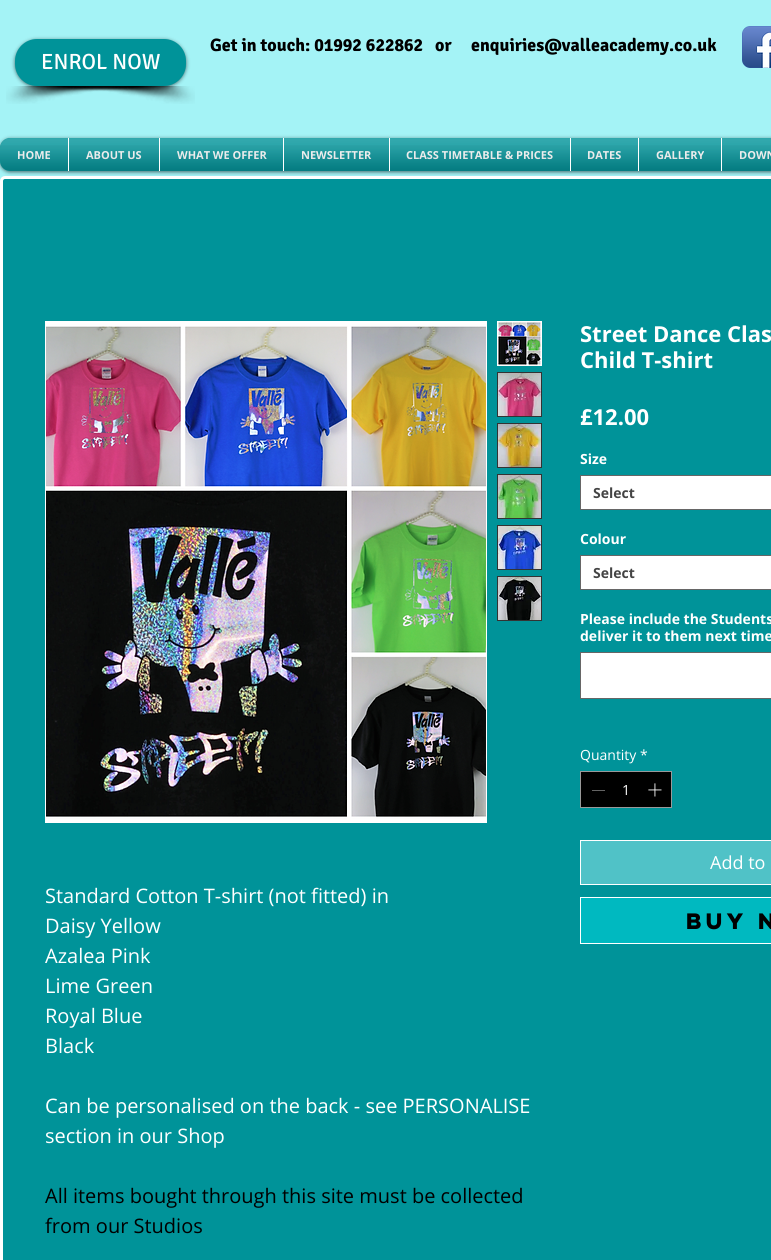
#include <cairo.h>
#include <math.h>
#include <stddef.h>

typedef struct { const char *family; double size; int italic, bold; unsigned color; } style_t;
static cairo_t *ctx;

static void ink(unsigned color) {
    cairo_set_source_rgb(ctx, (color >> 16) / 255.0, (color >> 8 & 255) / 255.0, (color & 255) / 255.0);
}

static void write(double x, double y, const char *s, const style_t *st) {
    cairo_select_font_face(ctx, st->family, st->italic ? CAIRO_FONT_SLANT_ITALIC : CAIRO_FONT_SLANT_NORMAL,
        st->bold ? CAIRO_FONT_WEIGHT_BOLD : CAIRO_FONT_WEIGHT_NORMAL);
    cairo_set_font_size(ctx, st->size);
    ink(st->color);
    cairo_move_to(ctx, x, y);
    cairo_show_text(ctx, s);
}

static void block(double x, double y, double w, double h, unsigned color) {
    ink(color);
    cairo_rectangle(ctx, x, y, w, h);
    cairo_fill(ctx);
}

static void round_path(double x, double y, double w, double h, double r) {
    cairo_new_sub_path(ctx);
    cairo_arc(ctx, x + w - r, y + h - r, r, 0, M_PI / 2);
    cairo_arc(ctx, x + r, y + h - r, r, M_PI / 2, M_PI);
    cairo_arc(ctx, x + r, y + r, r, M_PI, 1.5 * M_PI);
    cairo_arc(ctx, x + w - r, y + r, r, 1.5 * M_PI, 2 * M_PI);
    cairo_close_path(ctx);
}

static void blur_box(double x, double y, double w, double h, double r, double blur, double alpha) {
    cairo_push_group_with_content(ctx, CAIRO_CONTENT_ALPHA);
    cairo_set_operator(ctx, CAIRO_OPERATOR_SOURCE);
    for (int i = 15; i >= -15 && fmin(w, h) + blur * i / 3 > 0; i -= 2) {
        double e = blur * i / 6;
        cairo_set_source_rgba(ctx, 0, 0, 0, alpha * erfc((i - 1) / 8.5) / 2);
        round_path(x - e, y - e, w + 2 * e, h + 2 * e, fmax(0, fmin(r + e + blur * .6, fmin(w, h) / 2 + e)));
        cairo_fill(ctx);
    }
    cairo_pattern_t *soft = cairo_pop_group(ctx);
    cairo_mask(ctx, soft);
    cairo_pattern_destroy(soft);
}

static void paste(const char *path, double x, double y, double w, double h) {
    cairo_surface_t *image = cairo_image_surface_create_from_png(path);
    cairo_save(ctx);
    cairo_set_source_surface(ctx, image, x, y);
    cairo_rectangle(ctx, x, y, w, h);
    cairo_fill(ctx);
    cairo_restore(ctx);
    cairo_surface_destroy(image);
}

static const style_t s1 = {"Signika", 18, 0, 1, 0x000000};
static const style_t s2 = {"Signika", 22, 0, 0, 0xffffff};
static const style_t s3 = {"Open Sans", 11, 0, 1, 0xffffff};
static const style_t s4 = {"Open Sans", 22, 0, 1, 0xffffff};
static const style_t s5 = {"Open Sans", 14, 0, 1, 0xffffff};
static const style_t s6 = {"Open Sans", 14, 0, 1, 0x444444};
static const style_t s7 = {"Open Sans", 14, 0, 0, 0xffffff};
static const style_t s8 = {"Open Sans", 18, 0, 0, 0xffffff};
static const style_t s9 = {"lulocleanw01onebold", 20, 0, 1, 0x000000};
static const style_t s10 = {"Open Sans", 20, 0, 0, 0xffffff};
static const style_t s11 = {"Open Sans", 20, 0, 0, 0x000000};

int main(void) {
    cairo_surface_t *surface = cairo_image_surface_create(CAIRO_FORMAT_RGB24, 771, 1260);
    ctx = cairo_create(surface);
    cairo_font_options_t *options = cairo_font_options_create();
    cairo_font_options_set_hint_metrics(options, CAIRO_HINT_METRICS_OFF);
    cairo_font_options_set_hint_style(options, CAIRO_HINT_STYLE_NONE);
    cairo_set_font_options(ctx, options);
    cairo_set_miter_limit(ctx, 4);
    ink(0xa4f3f6);
    cairo_paint(ctx);
    write(210, 51, "Get in touch: 01992 622862   or", &s1);
    write(471, 51, "enquiries@valleacademy.co.uk", &s1);
    paste("pic1.png", 742, 26, 29, 42);
    paste("pic2.png", 6, 86, 154, 18);
    paste("pic3.png", 71, 86, 124, 18);
    ink(0x000000);
    blur_box(15, 40, 171, 47, 22, 2, 0.6);
    ink(0x009399);
    round_path(15, 39, 171, 47, 22);
    cairo_fill(ctx);
    write(41, 69, "ENROL NOW", &s2);
    ink(0x000000);
    blur_box(0, 139, 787, 33, 10, 2, 0.6);
    paste("pic4.png", 0, 138, 10, 28);
    paste("pic5.png", 0, 147, 10, 24);
    ink(0x009399);
    cairo_new_path(ctx);
    cairo_move_to(ctx, 10, 138);
    cairo_line_to(ctx, 68, 138);
    cairo_line_to(ctx, 68, 171);
    cairo_line_to(ctx, 10, 171);
    cairo_curve_to(ctx, 4.5, 171, 0, 166.5, 0, 161);
    cairo_line_to(ctx, 0, 148);
    cairo_curve_to(ctx, 0, 142.5, 4.5, 138, 10, 138);
    cairo_close_path(ctx);
    cairo_fill(ctx);
    write(17, 159, "HOME", &s3);
    paste("pic6.png", 0, 138, 68, 33);
    paste("pic7.png", 0, 145, 68, 26);
    block(69, 138, 90, 33, 0x009399);
    block(68, 138, 1, 33, 0xffffff);
    write(86, 159, "ABOUT US", &s3);
    paste("pic8.png", 69, 138, 90, 33);
    paste("pic9.png", 69, 145, 90, 26);
    block(160, 138, 123, 33, 0x009399);
    block(159, 138, 1, 33, 0xffffff);
    write(177, 159, "WHAT WE OFFER", &s3);
    paste("pic10.png", 160, 138, 123, 33);
    paste("pic11.png", 160, 145, 123, 26);
    block(284, 138, 105, 33, 0x009399);
    block(283, 138, 1, 33, 0xffffff);
    write(301, 159, "NEWSLETTER", &s3);
    paste("pic12.png", 284, 138, 105, 33);
    paste("pic13.png", 284, 145, 105, 26);
    block(390, 138, 180, 33, 0x009399);
    block(389, 138, 1, 33, 0xffffff);
    write(406, 159, "CLASS TIMETABLE & PRICES", &s3);
    paste("pic14.png", 390, 138, 180, 33);
    paste("pic15.png", 390, 145, 180, 26);
    block(571, 138, 67, 33, 0x009399);
    block(570, 138, 1, 33, 0xffffff);
    write(587, 159, "DATES", &s3);
    paste("pic16.png", 571, 138, 67, 33);
    paste("pic17.png", 571, 145, 67, 26);
    block(639, 138, 82, 33, 0x009399);
    block(638, 138, 1, 33, 0xffffff);
    write(656, 159, "GALLERY", &s3);
    paste("pic18.png", 639, 138, 82, 33);
    paste("pic19.png", 639, 145, 82, 26);
    block(722, 138, 49, 33, 0x009399);
    block(721, 138, 1, 33, 0xffffff);
    write(739, 159, "DOWN", &s3);
    paste("pic20.png", 722, 138, 49, 33);
    paste("pic21.png", 722, 145, 49, 26);
    ink(0x009399);
    round_path(1.5, 177.5, 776, 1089, 3.5);
    cairo_fill_preserve(ctx);
    ink(0xffffff);
    cairo_set_line_width(ctx, 3);
    cairo_stroke(ctx);
    write(580, 342, "Street Dance Clas", &s4);
    write(580, 368, "Child T-shirt", &s4);
    write(580, 425, "£12.00", &s4);
    write(580, 464, "Size", &s5);
    cairo_rectangle(ctx, 580.5, 475.5, 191, 34);
    cairo_fill_preserve(ctx);
    ink(0x666666);
    cairo_set_line_width(ctx, 1);
    cairo_stroke(ctx);
    write(593, 498, "Select", &s6);
    write(580, 544, "Colour", &s5);
    cairo_rectangle(ctx, 580.5, 555.5, 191, 34);
    cairo_fill_preserve(ctx);
    ink(0x666666);
    cairo_stroke(ctx);
    write(593, 578, "Select", &s6);
    write(580, 624, "Please include the Students", &s5);
    write(580, 641, "deliver it to them next time", &s5);
    cairo_rectangle(ctx, 580.5, 652.5, 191, 46);
    cairo_fill_preserve(ctx);
    ink(0x666666);
    cairo_stroke(ctx);
    write(580, 760, "Quantity", &s7);
    write(640, 760, "*", &s7);
    ink(0x000000);
    cairo_rectangle(ctx, 580.5, 771.5, 91, 36);
    cairo_fill_preserve(ctx);
    ink(0x999999);
    cairo_stroke(ctx);
    block(592, 790, 13, 1, 0x646464);
    write(622, 795, "1", &s7);
    paste("pic22.png", 648, 783, 14, 14);
    ink(0x50c2c7);
    cairo_rectangle(ctx, 580.5, 840.5, 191, 44);
    cairo_fill_preserve(ctx);
    ink(0xffffff);
    cairo_stroke(ctx);
    write(710, 869, "Add to", &s8);
    ink(0x00b9c0);
    cairo_rectangle(ctx, 580.5, 897.5, 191, 46);
    cairo_fill_preserve(ctx);
    ink(0xffffff);
    cairo_stroke(ctx);
    write(686, 929, "Buy N", &s9);
    cairo_rectangle(ctx, 45.5, 321.5, 441, 501);
    ink(0xffffff);
    cairo_stroke(ctx);
    paste("pic23.png", 46, 322, 440, 500);
    cairo_rectangle(ctx, 497.5, 321.5, 44, 44);
    cairo_stroke(ctx);
    paste("pic24.png", 498, 322, 43, 43);
    cairo_rectangle(ctx, 497.5, 372.5, 44, 44);
    ink(0x333333);
    cairo_stroke(ctx);
    paste("pic25.png", 498, 373, 43, 43);
    cairo_rectangle(ctx, 497.5, 423.5, 44, 44);
    cairo_stroke(ctx);
    paste("pic26.png", 498, 424, 43, 43);
    cairo_rectangle(ctx, 497.5, 474.5, 44, 44);
    cairo_stroke(ctx);
    paste("pic27.png", 498, 475, 43, 43);
    cairo_rectangle(ctx, 497.5, 525.5, 44, 44);
    cairo_stroke(ctx);
    paste("pic28.png", 498, 526, 43, 43);
    cairo_rectangle(ctx, 497.5, 576.5, 44, 44);
    cairo_stroke(ctx);
    paste("pic29.png", 498, 577, 43, 43);
    write(45, 903, "Standard Cotton T-shirt (not fitted) in", &s10);
    write(45, 933, "Daisy Yellow", &s10);
    write(45, 963, "Azalea Pink", &s10);
    write(45, 993, "Lime Green", &s10);
    write(45, 1023, "Royal Blue", &s10);
    write(45, 1053, "Black", &s10);
    write(45, 1113, "Can be personalised on the back - see PERSONALISE", &s10);
    write(45, 1143, "section in our Shop", &s10);
    write(45, 1203, "All items bought through this site must be collected", &s11);
    write(45, 1233, "from our Studios", &s11);
    cairo_surface_write_to_png(surface, "screenshot.png");
    cairo_font_options_destroy(options);
    cairo_destroy(ctx);
    cairo_surface_destroy(surface);
    return 0;
}
